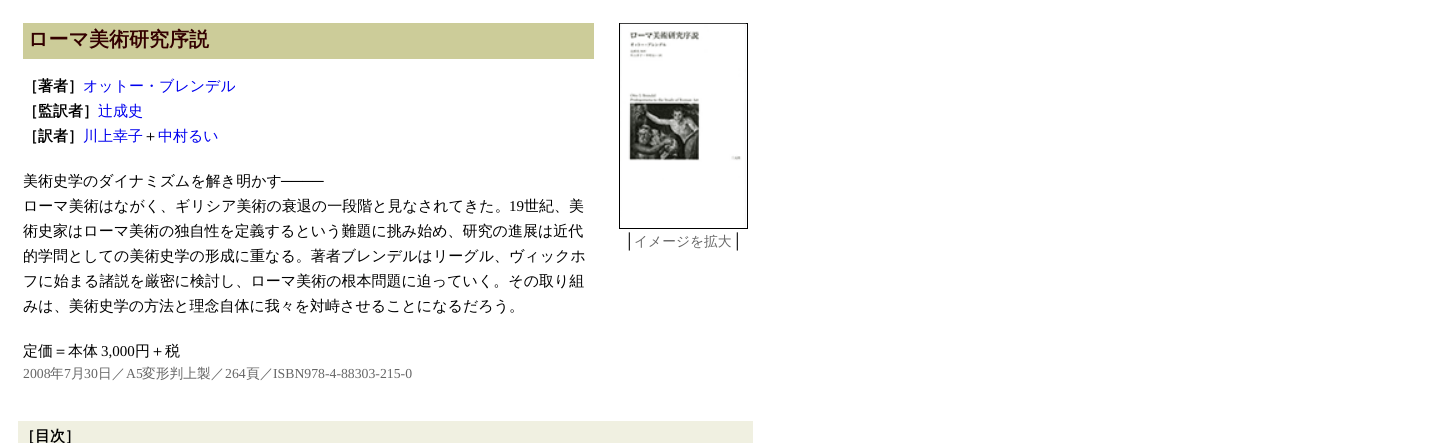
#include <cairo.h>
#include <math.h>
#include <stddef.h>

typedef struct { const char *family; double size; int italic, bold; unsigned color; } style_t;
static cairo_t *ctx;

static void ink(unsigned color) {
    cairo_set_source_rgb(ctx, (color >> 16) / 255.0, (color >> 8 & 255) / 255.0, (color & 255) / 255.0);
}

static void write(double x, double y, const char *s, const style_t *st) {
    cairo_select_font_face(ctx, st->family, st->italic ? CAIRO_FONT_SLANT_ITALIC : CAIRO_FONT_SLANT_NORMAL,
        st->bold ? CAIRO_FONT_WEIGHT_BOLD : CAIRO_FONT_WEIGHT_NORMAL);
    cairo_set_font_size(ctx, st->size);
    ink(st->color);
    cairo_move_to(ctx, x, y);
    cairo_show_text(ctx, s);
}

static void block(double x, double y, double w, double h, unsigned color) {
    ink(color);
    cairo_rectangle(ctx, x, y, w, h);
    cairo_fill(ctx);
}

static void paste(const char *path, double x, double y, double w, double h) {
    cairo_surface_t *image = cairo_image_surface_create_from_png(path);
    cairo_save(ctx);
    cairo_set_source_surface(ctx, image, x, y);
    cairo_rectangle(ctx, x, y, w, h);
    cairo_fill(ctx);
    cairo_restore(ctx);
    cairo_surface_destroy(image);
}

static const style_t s1 = {"WenQuanYi Zen Hei", 20, 0, 1, 0x330000};
static const style_t s2 = {"WenQuanYi Zen Hei", 15, 0, 1, 0x000000};
static const style_t s3 = {"WenQuanYi Zen Hei Medium", 15, 0, 0, 0x0000ee};
static const style_t s4 = {"WenQuanYi Zen Hei Medium", 15, 0, 0, 0x000000};
static const style_t s5 = {"Liberation Serif", 15, 0, 1, 0x000000};
static const style_t s6 = {"Liberation Serif", 15, 0, 0, 0x000000};
static const style_t s7 = {"Liberation Serif", 13.75, 0, 0, 0x666666};
static const style_t s8 = {"WenQuanYi Zen Hei Medium", 13.75, 0, 0, 0x666666};

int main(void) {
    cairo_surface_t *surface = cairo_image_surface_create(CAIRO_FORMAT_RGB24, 1435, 443);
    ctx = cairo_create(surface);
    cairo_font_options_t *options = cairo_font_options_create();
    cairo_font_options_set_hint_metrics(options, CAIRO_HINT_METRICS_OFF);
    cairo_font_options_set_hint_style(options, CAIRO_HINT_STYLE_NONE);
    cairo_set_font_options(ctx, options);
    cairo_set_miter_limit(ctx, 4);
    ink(0xffffff);
    cairo_paint(ctx);
    block(23, 23, 571, 36, 0xcccc99);
    write(28, 46, "ローマ美術研究序説", &s1);
    write(23, 91, "［著者］", &s2);
    write(83, 91, "オットー・ブレンデル", &s3);
    write(23, 116, "［監訳者］", &s2);
    write(98, 116, "辻成史", &s3);
    write(23, 141, "［訳者］", &s2);
    write(83, 141, "川上幸子", &s3);
    write(143, 141, "＋", &s4);
    write(158, 141, "中村るい", &s3);
    write(23, 186, "美術史学のダイナミズムを解き明かす", &s4);
    write(281, 186, "────", &s5);
    write(23, 211, "ローマ美術はながく、ギリシア美術の衰退の一段階と見なされてきた。", &s4);
    write(509, 211, "19", &s6);
    write(524, 211, "世紀、美", &s4);
    write(23, 236, "術史家はローマ美術の独自性を定義するという難題に挑み始め、研究の進展は近代", &s4);
    write(23, 261, "的学問としての美術史学の形成に重なる。著者ブレンデルはリーグル、ヴィックホ", &s4);
    write(23, 286, "フに始まる諸説を厳密に検討し、ローマ美術の根本問題に迫っていく。その取り組", &s4);
    write(23, 311, "みは、美術史学の方法と理念自体に我々を対峙させることになるだろう。", &s4);
    write(23, 356, "定価＝本体", &s4);
    write(101, 356, "3,000", &s6);
    write(135, 356, "円＋税", &s4);
    write(23, 378, "2008", &s7);
    write(50, 378, "年", &s8);
    write(64, 378, "7", &s7);
    write(71, 378, "月", &s8);
    write(84, 378, "30", &s7);
    write(98, 378, "日／", &s8);
    write(126, 378, "A5", &s7);
    write(142, 378, "変形判上製／", &s8);
    write(225, 378, "264", &s7);
    write(246, 378, "頁／", &s8);
    write(273, 378, "ISBN978-4-88303-215-0", &s7);
    cairo_rectangle(ctx, 619.5, 23.5, 128, 205);
    ink(0x000000);
    cairo_set_line_width(ctx, 1);
    cairo_stroke(ctx);
    paste("pic1.png", 620, 23, 127, 205);
    write(624, 246, "│", &s6);
    write(634, 246, "イメージを拡大", &s8);
    write(732, 246, "│", &s6);
    block(18, 421, 735, 22, 0xf0f0e1);
    write(20, 441, "［目次］", &s2);
    cairo_surface_write_to_png(surface, "screenshot.png");
    cairo_font_options_destroy(options);
    cairo_destroy(ctx);
    cairo_surface_destroy(surface);
    return 0;
}
